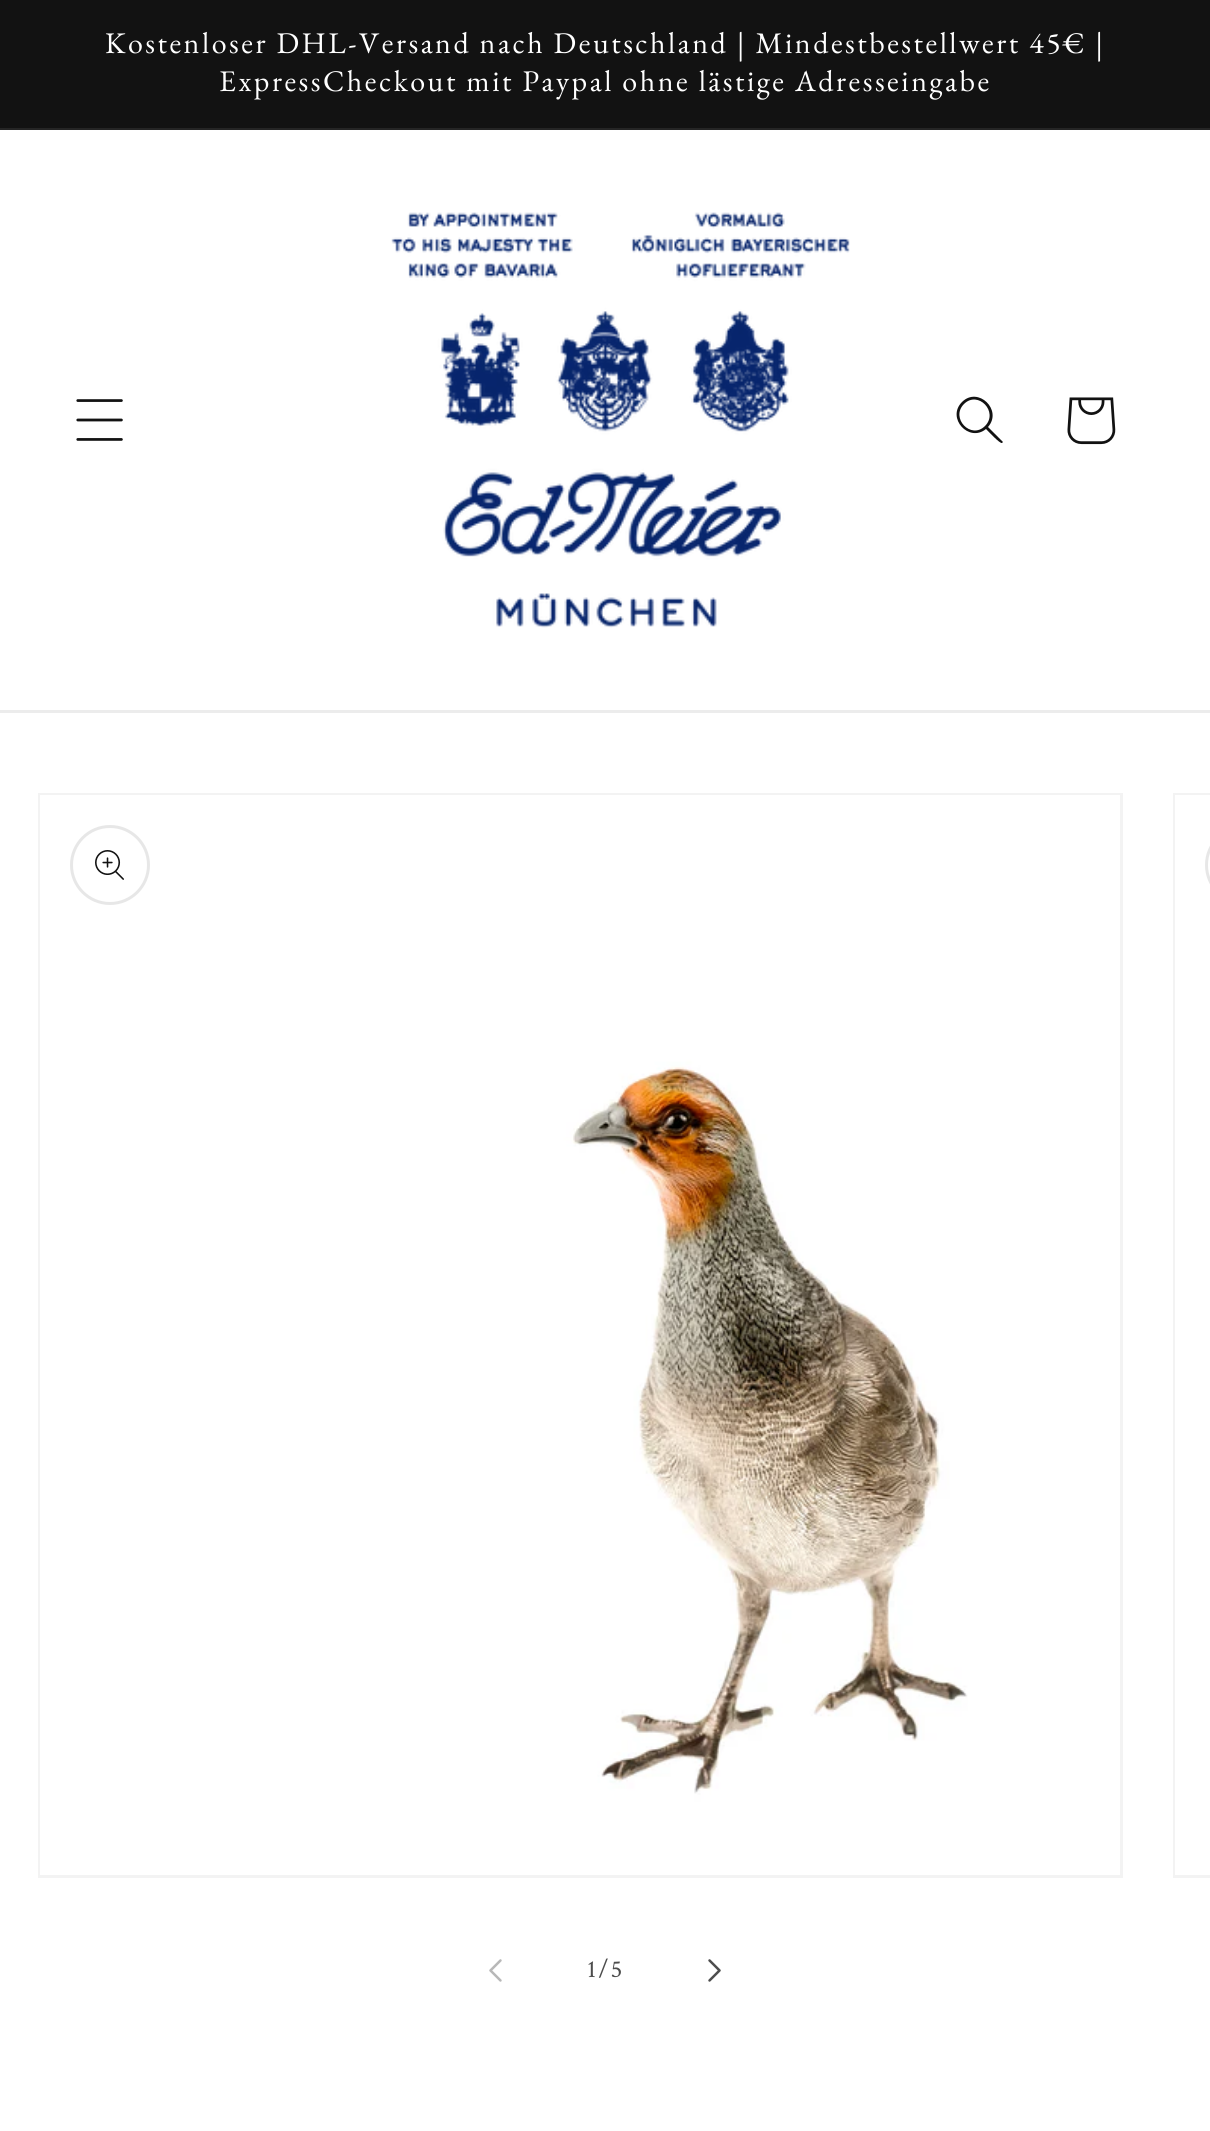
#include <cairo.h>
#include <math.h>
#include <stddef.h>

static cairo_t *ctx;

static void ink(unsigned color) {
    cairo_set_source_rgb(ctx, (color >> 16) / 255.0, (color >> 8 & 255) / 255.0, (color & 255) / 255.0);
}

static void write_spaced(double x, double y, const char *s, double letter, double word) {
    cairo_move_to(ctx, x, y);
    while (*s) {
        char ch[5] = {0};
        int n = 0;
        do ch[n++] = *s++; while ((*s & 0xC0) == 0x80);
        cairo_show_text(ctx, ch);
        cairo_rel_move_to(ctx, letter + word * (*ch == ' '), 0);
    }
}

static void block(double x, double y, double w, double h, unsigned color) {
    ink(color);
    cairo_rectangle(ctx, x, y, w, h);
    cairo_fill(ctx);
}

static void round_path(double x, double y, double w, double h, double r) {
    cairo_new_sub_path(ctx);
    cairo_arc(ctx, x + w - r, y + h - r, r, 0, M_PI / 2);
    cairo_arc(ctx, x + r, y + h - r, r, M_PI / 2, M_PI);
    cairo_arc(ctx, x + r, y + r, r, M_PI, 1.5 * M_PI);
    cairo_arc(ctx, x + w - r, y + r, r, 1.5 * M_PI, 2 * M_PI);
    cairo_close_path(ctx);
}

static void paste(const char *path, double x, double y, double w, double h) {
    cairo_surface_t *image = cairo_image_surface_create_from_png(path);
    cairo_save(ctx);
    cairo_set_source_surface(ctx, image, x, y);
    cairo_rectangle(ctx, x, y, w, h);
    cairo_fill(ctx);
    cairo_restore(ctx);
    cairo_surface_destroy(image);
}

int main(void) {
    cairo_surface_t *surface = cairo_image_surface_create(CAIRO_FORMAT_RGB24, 1210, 2131);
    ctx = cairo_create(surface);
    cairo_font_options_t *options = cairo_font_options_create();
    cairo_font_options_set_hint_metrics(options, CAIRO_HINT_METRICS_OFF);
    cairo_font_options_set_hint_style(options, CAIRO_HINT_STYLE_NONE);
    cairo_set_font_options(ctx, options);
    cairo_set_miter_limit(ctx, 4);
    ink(0xffffff);
    cairo_paint(ctx);
    block(0, 0, 1210, 128, 0x121212);
    block(0, 128, 1210, 2, 0x252525);
    cairo_select_font_face(ctx, "EB Garamond", CAIRO_FONT_SLANT_NORMAL, CAIRO_FONT_WEIGHT_NORMAL);
    cairo_set_font_size(ctx, 30);
    ink(0xffffff);
    write_spaced(105, 53, "Kostenloser DHL-Versand nach Deutschland | Mindestbestellwert 45€ |", 2.5, 0);
    write_spaced(219, 91, "ExpressCheckout mit Paypal ohne lästige Adresseingabe", 2.5, 0);
    block(0, 710, 1210, 3, 0xececec);
    paste("pic1.png", 76, 399, 47, 42);
    paste("pic2.png", 391, 212, 459, 416);
    ink(0x121212);
    cairo_set_fill_rule(ctx, CAIRO_FILL_RULE_EVEN_ODD);
    cairo_new_path(ctx);
    cairo_move_to(ctx, 985, 426);
    cairo_curve_to(ctx, 971, 440, 950, 418, 964, 404);
    cairo_curve_to(ctx, 978, 390, 999, 412, 985, 426);
    cairo_close_path(ctx);
    cairo_move_to(ctx, 986, 429);
    cairo_curve_to(ctx, 969, 443, 946, 418, 962, 402);
    cairo_curve_to(ctx, 978, 386, 1003, 410, 988, 427);
    cairo_line_to(ctx, 1003, 442);
    cairo_line_to(ctx, 1002, 443);
    cairo_curve_to(ctx, 1000, 444, 988, 431, 986, 429);
    cairo_close_path(ctx);
    cairo_fill(ctx);
    paste("pic3.png", 1067, 397, 49, 48);
    cairo_rectangle(ctx, 39.5, 794.5, 1082, 1082);
    ink(0xf3f3f3);
    cairo_set_line_width(ctx, 3);
    cairo_stroke(ctx);
    paste("pic4.png", 40, 795, 1080, 1080);
    cairo_arc(ctx, 110, 865, 38.5, 0, 2 * M_PI);
    ink(0xe7e7e7);
    cairo_stroke(ctx);
    paste("pic5.png", 95, 850, 29, 30);
    cairo_rectangle(ctx, 1174.5, 794.5, 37, 1082);
    ink(0xf3f3f3);
    cairo_stroke(ctx);
    block(1175, 795, 35, 1080, 0xffffff);
    round_path(1206.5, 826.5, 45, 77, 38.5);
    ink(0xe7e7e7);
    cairo_stroke(ctx);
    paste("pic6.png", 489, 1959, 13, 23);
    cairo_select_font_face(ctx, "Crimson Text", CAIRO_FONT_SLANT_NORMAL, CAIRO_FONT_WEIGHT_NORMAL);
    cairo_set_font_size(ctx, 25);
    ink(0x4d4d4d);
    write_spaced(587, 1977, "1/5", 2, 0);
    paste("pic7.png", 708, 1959, 13, 23);
    cairo_surface_write_to_png(surface, "screenshot.png");
    cairo_font_options_destroy(options);
    cairo_destroy(ctx);
    cairo_surface_destroy(surface);
    return 0;
}
